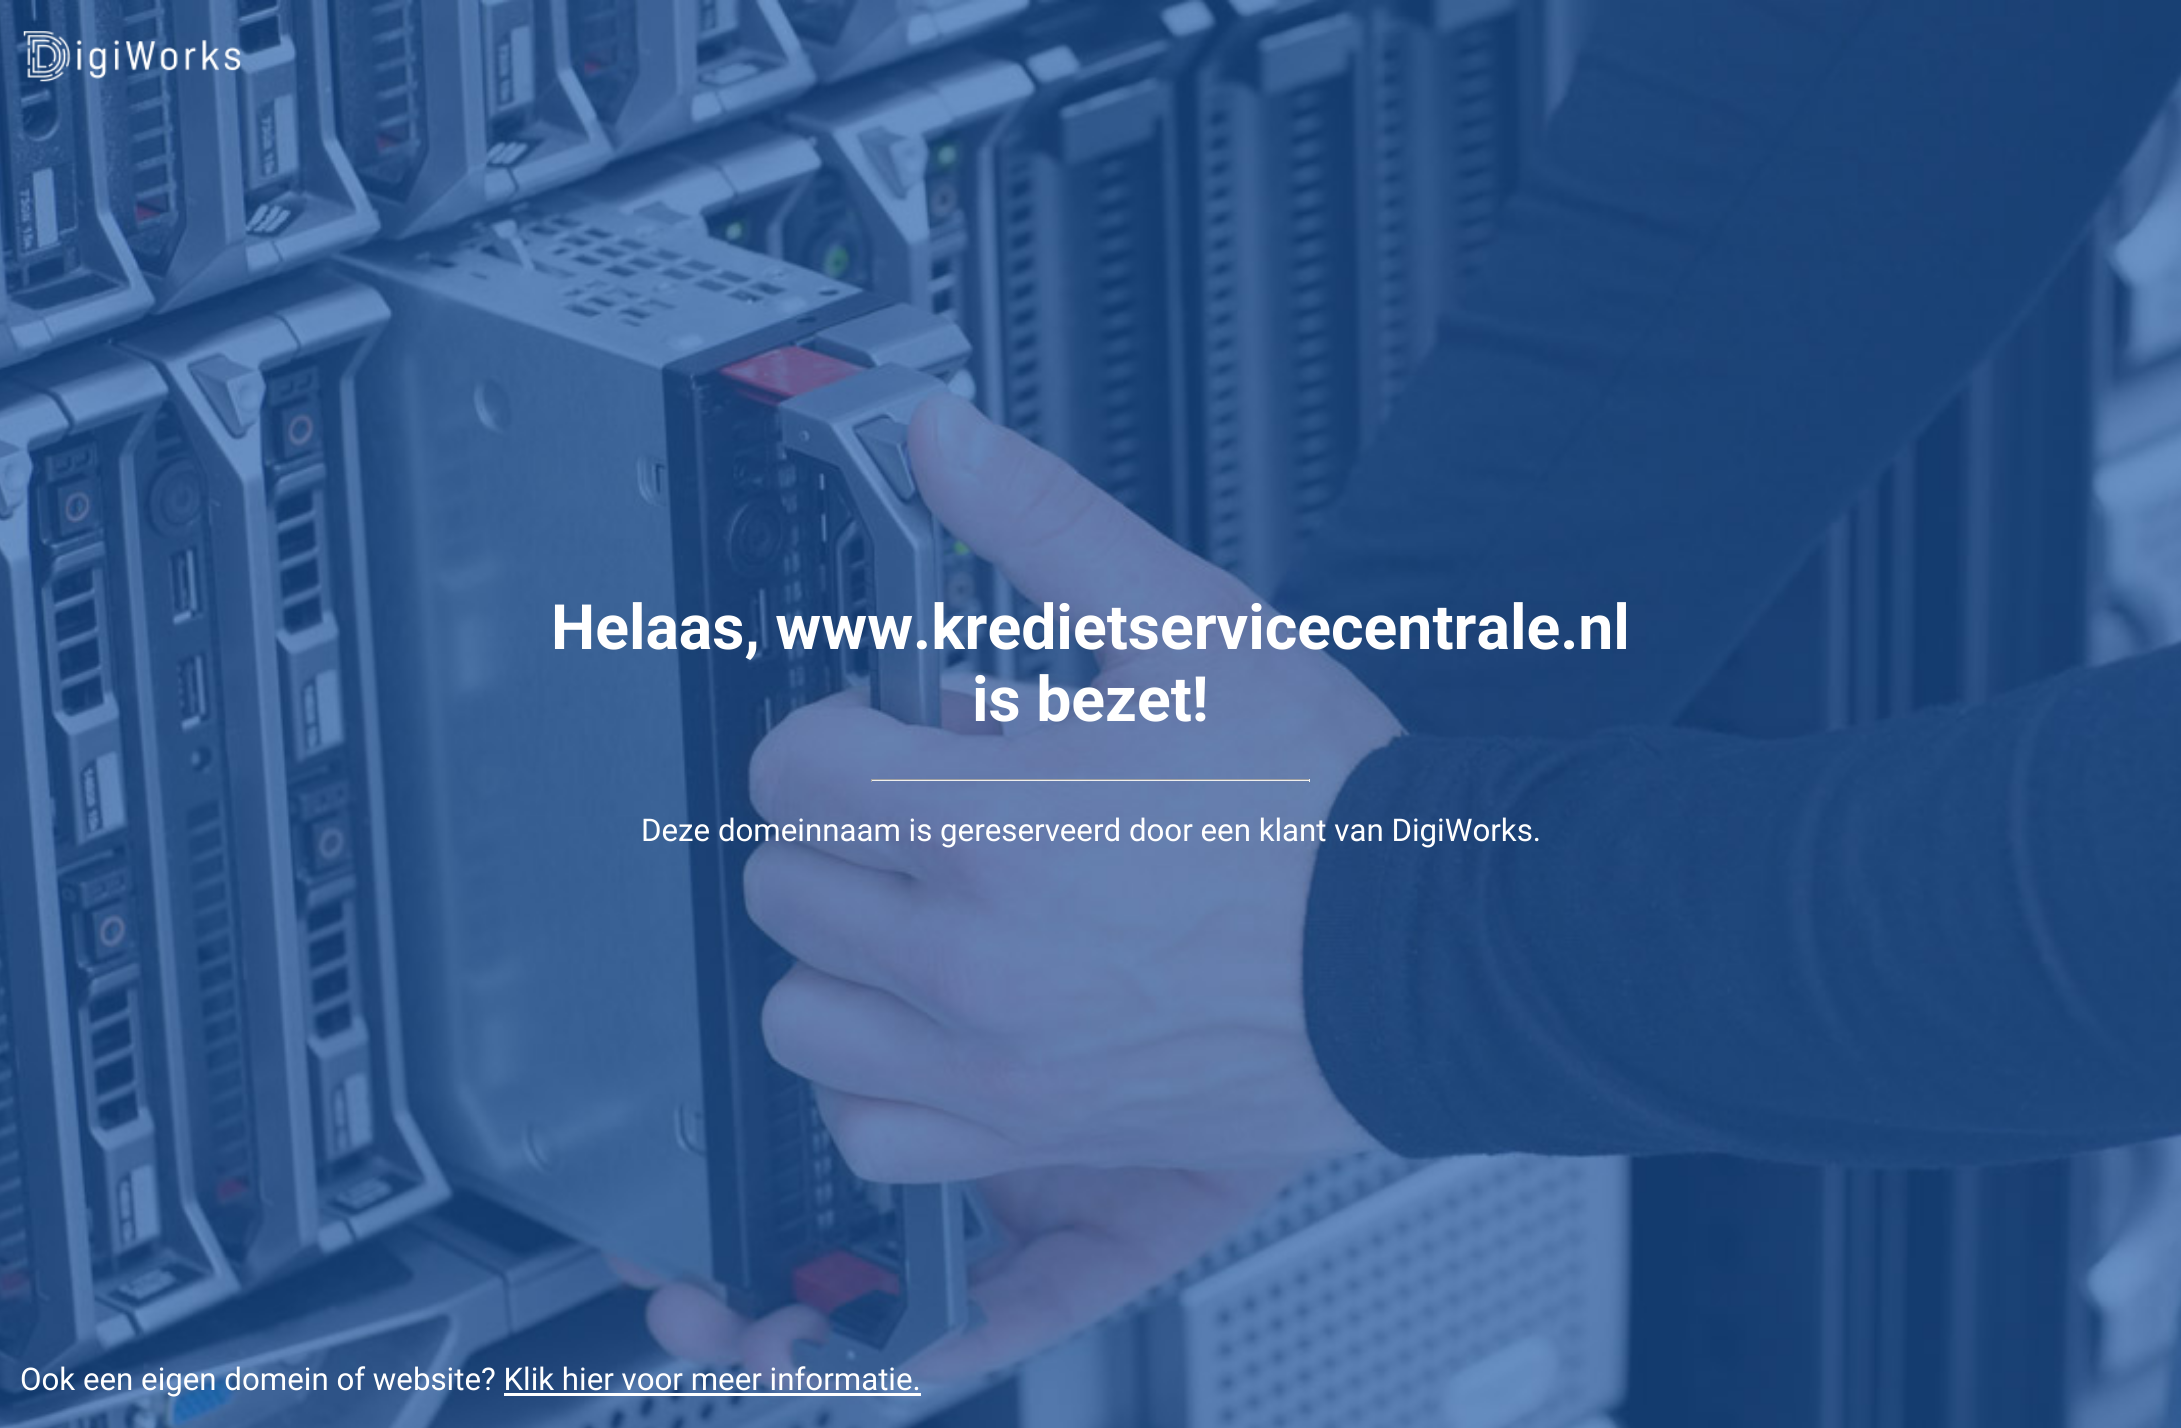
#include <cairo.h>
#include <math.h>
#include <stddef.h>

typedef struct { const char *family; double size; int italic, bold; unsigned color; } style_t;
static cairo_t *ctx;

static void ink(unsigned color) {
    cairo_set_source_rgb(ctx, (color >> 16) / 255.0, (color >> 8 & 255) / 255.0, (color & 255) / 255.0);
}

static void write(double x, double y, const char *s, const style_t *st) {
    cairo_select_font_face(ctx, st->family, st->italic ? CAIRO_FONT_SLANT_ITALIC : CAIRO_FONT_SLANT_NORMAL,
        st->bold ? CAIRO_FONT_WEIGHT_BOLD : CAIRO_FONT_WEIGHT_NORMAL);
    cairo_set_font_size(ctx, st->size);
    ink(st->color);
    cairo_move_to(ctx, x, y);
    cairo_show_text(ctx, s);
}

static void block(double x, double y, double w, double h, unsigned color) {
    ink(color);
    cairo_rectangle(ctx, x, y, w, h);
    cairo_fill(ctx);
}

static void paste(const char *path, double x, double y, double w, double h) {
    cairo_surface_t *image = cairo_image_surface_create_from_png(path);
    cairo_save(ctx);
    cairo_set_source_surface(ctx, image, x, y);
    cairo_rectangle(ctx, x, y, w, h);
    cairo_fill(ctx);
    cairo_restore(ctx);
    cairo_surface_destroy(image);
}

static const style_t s1 = {"Roboto", 62.5, 0, 1, 0xffffff};
static const style_t s2 = {"Roboto", 31.25, 0, 0, 0xffffff};

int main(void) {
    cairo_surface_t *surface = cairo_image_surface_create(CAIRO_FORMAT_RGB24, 2181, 1428);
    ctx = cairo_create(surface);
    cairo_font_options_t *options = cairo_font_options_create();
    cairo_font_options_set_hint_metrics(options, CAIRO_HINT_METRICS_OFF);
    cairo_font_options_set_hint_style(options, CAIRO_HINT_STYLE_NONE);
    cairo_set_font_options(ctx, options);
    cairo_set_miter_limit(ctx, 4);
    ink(0xffffff);
    cairo_paint(ctx);
    paste("pic1.png", 0, 0, 2181, 1428);
    paste("pic2.png", 23, 31, 218, 51);
    write(551, 649, "Helaas, www.kredietservicecentrale.nl", &s1);
    write(972, 721, "is bezet!", &s1);
    block(871, 779, 439, 1, 0x9f9f9f);
    block(1309, 779, 1, 3, 0xeeeeee);
    block(871, 780, 439, 1, 0xeeeeee);
    block(871, 779, 1, 3, 0x9f9f9f);
    write(641, 841, "Deze domeinnaam is gereserveerd door een klant van DigiWorks.", &s2);
    write(20, 1390, "Ook een eigen domein of website? Klik hier voor meer informatie.", &s2);
    block(504, 1393, 417, 3, 0xffffff);
    cairo_surface_write_to_png(surface, "screenshot.png");
    cairo_font_options_destroy(options);
    cairo_destroy(ctx);
    cairo_surface_destroy(surface);
    return 0;
}
